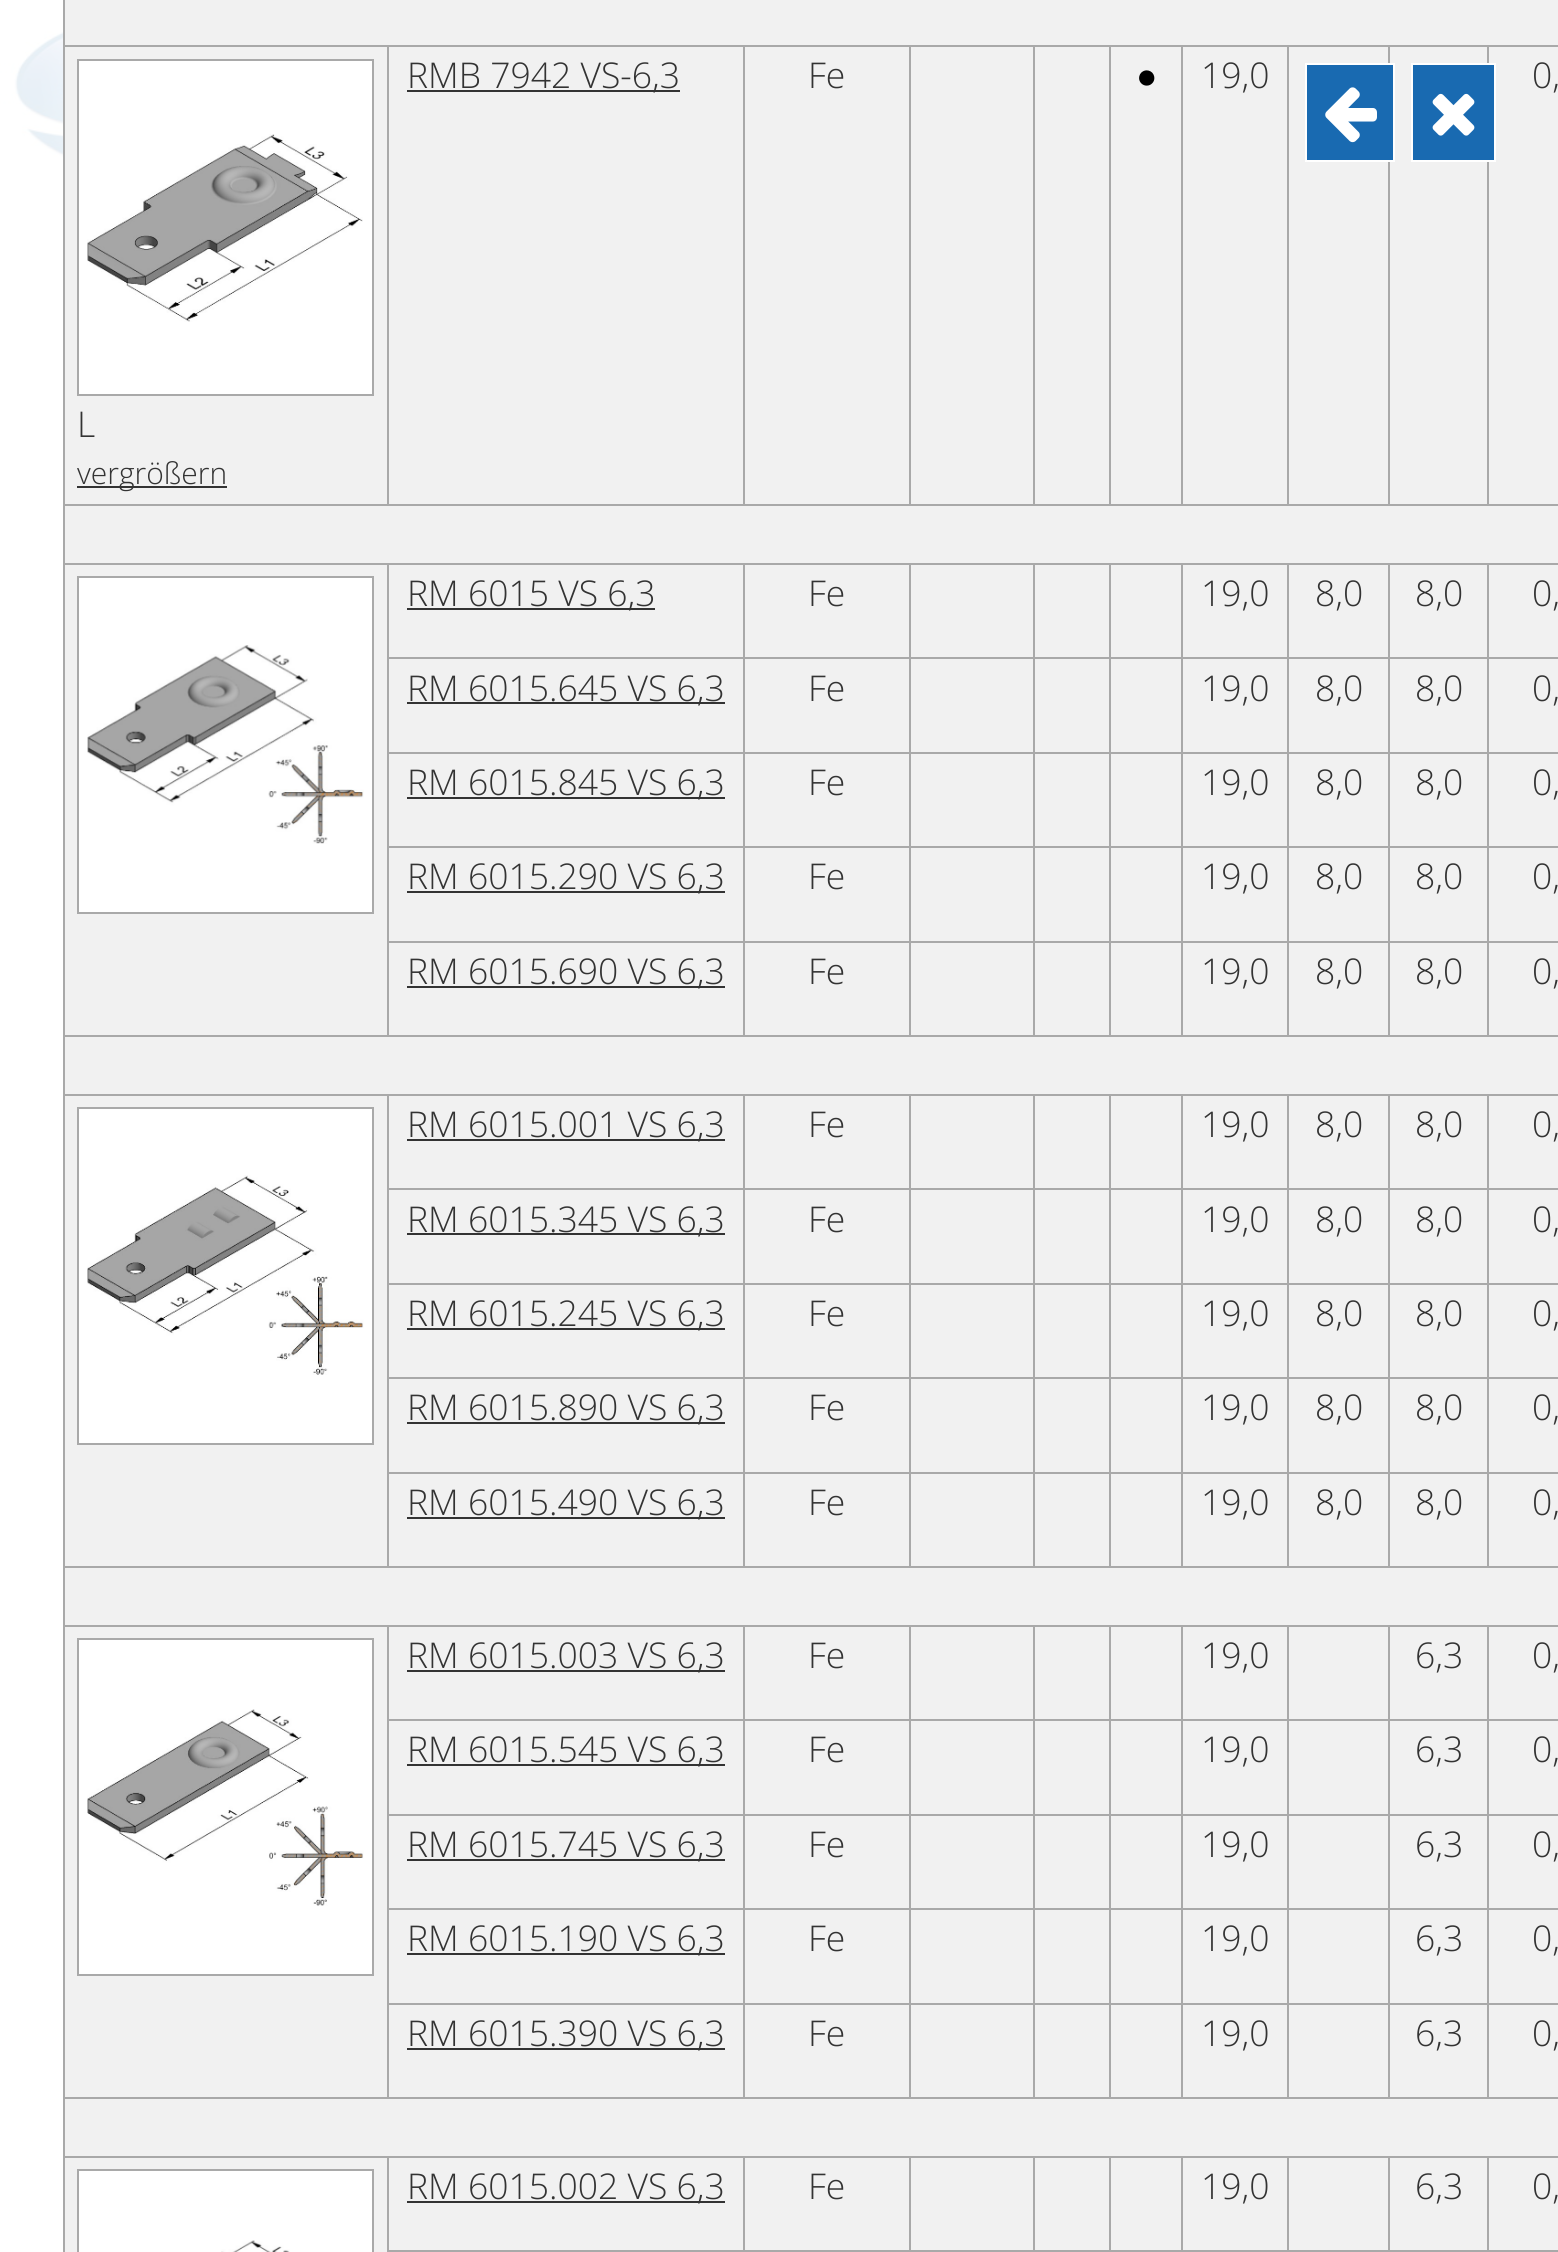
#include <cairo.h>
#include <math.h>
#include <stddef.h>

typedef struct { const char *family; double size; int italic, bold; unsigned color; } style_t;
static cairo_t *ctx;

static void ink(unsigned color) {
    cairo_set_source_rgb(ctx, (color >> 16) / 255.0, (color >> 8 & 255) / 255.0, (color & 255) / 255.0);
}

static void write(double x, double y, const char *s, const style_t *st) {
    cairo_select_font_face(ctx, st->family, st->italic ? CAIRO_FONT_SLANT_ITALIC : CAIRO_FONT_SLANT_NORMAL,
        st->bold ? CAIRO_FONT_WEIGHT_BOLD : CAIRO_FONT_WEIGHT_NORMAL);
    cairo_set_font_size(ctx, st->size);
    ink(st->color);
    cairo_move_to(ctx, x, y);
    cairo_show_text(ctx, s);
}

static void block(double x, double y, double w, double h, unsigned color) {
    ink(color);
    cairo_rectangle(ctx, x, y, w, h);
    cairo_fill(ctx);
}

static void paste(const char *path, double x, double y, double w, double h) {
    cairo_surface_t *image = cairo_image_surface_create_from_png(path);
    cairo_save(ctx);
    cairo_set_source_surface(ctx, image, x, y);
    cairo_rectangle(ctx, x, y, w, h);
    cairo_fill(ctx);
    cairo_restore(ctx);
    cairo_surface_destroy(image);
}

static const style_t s1 = {"Open Sans Light", 35.5, 0, 0, 0x333333};
static const style_t s2 = {"Liberation Sans", 35.5, 0, 1, 0x000000};
static const style_t s3 = {"Open Sans Light", 30, 0, 0, 0x333333};

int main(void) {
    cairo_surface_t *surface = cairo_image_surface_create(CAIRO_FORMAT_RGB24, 1558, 2252);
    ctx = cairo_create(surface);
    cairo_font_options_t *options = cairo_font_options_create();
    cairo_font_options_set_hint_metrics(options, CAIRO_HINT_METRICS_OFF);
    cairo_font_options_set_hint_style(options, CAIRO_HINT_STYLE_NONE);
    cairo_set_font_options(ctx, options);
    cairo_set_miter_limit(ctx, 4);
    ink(0xffffff);
    cairo_paint(ctx);
    paste("pic1.png", 0, 10, 63, 167);
    block(65, 0, 1493, 45, 0xf1f1f1);
    block(389, 47, 354, 457, 0xf1f1f1);
    block(1487, 45, 71, 2, 0xa9a9a9);
    block(1390, 47, 168, 457, 0xf1f1f1);
    block(63, 504, 1495, 2, 0xa9a9a9);
    block(1487, 45, 2, 461, 0xa9a9a9);
    block(1388, 45, 102, 2, 0xa9a9a9);
    block(1388, 45, 2, 461, 0xa9a9a9);
    block(1287, 45, 104, 2, 0xa9a9a9);
    block(1287, 45, 2, 461, 0xa9a9a9);
    block(1181, 45, 108, 2, 0xa9a9a9);
    block(1035, 47, 252, 457, 0xf1f1f1);
    block(1181, 45, 2, 461, 0xa9a9a9);
    block(1109, 45, 75, 2, 0xa9a9a9);
    block(1109, 45, 2, 461, 0xa9a9a9);
    block(1033, 45, 79, 2, 0xa9a9a9);
    block(1033, 45, 2, 461, 0xa9a9a9);
    block(909, 45, 126, 2, 0xa9a9a9);
    block(909, 45, 2, 461, 0xa9a9a9);
    block(743, 45, 168, 2, 0xa9a9a9);
    block(743, 45, 2, 461, 0xa9a9a9);
    block(387, 45, 358, 2, 0xa9a9a9);
    block(387, 45, 2, 461, 0xa9a9a9);
    block(407, 90, 273, 2, 0x333333);
    write(407, 88, "RMB 7942 VS-6,3", &s1);
    block(745, 47, 164, 457, 0xf1f1f1);
    write(808, 88, "Fe", &s1);
    block(911, 47, 122, 457, 0xf1f1f1);
    block(1289, 47, 99, 457, 0xf1f1f1);
    write(1136, 88, "●", &s2);
    write(1201, 88, "19,0", &s1);
    write(1532, 88, "0,", &s1);
    block(65, 47, 322, 457, 0xf1f1f1);
    block(63, 45, 326, 2, 0xa9a9a9);
    block(1487, 563, 71, 2, 0xa9a9a9);
    block(1390, 565, 168, 92, 0xf1f1f1);
    block(1487, 657, 71, 2, 0xa9a9a9);
    block(1390, 659, 168, 93, 0xf1f1f1);
    block(1487, 752, 71, 2, 0xa9a9a9);
    block(1390, 754, 168, 92, 0xf1f1f1);
    block(1487, 846, 71, 2, 0xa9a9a9);
    block(1390, 848, 168, 93, 0xf1f1f1);
    block(1487, 941, 71, 2, 0xa9a9a9);
    block(1390, 943, 168, 92, 0xf1f1f1);
    block(63, 1035, 1495, 2, 0xa9a9a9);
    block(1487, 941, 2, 96, 0xa9a9a9);
    block(1388, 941, 102, 2, 0xa9a9a9);
    block(1487, 846, 2, 97, 0xa9a9a9);
    block(1388, 846, 102, 2, 0xa9a9a9);
    block(1487, 752, 2, 96, 0xa9a9a9);
    block(1388, 752, 102, 2, 0xa9a9a9);
    block(1487, 657, 2, 97, 0xa9a9a9);
    block(1388, 657, 102, 2, 0xa9a9a9);
    block(1487, 563, 2, 96, 0xa9a9a9);
    block(1388, 563, 102, 2, 0xa9a9a9);
    block(1388, 941, 2, 96, 0xa9a9a9);
    block(1287, 941, 104, 2, 0xa9a9a9);
    block(1388, 846, 2, 97, 0xa9a9a9);
    block(1287, 846, 104, 2, 0xa9a9a9);
    block(1388, 752, 2, 96, 0xa9a9a9);
    block(1287, 752, 104, 2, 0xa9a9a9);
    block(1388, 657, 2, 97, 0xa9a9a9);
    block(1287, 657, 104, 2, 0xa9a9a9);
    block(1388, 563, 2, 96, 0xa9a9a9);
    block(1287, 563, 104, 2, 0xa9a9a9);
    block(1287, 941, 2, 96, 0xa9a9a9);
    block(1181, 941, 108, 2, 0xa9a9a9);
    block(1287, 846, 2, 97, 0xa9a9a9);
    block(1181, 846, 108, 2, 0xa9a9a9);
    block(1287, 752, 2, 96, 0xa9a9a9);
    block(1181, 752, 108, 2, 0xa9a9a9);
    block(1287, 657, 2, 97, 0xa9a9a9);
    block(1181, 657, 108, 2, 0xa9a9a9);
    block(1287, 563, 2, 96, 0xa9a9a9);
    block(1181, 563, 108, 2, 0xa9a9a9);
    block(1035, 565, 252, 92, 0xf1f1f1);
    block(1035, 659, 252, 93, 0xf1f1f1);
    block(1035, 754, 252, 92, 0xf1f1f1);
    block(1035, 848, 252, 93, 0xf1f1f1);
    block(1035, 943, 252, 92, 0xf1f1f1);
    block(1181, 941, 2, 96, 0xa9a9a9);
    block(1109, 941, 75, 2, 0xa9a9a9);
    block(1181, 846, 2, 97, 0xa9a9a9);
    block(1109, 846, 75, 2, 0xa9a9a9);
    block(1181, 752, 2, 96, 0xa9a9a9);
    block(1109, 752, 75, 2, 0xa9a9a9);
    block(1181, 657, 2, 97, 0xa9a9a9);
    block(1109, 657, 75, 2, 0xa9a9a9);
    block(1181, 563, 2, 96, 0xa9a9a9);
    block(1109, 563, 75, 2, 0xa9a9a9);
    block(1109, 941, 2, 96, 0xa9a9a9);
    block(1033, 941, 79, 2, 0xa9a9a9);
    block(1109, 846, 2, 97, 0xa9a9a9);
    block(1033, 846, 79, 2, 0xa9a9a9);
    block(1109, 752, 2, 96, 0xa9a9a9);
    block(1033, 752, 79, 2, 0xa9a9a9);
    block(1109, 657, 2, 97, 0xa9a9a9);
    block(1033, 657, 79, 2, 0xa9a9a9);
    block(1109, 563, 2, 96, 0xa9a9a9);
    block(1033, 563, 79, 2, 0xa9a9a9);
    block(1033, 941, 2, 96, 0xa9a9a9);
    block(909, 941, 126, 2, 0xa9a9a9);
    block(1033, 846, 2, 97, 0xa9a9a9);
    block(909, 846, 126, 2, 0xa9a9a9);
    block(1033, 752, 2, 96, 0xa9a9a9);
    block(909, 752, 126, 2, 0xa9a9a9);
    block(1033, 657, 2, 97, 0xa9a9a9);
    block(909, 657, 126, 2, 0xa9a9a9);
    block(1033, 563, 2, 96, 0xa9a9a9);
    block(909, 563, 126, 2, 0xa9a9a9);
    block(909, 941, 2, 96, 0xa9a9a9);
    block(743, 941, 168, 2, 0xa9a9a9);
    block(909, 846, 2, 97, 0xa9a9a9);
    block(743, 846, 168, 2, 0xa9a9a9);
    block(909, 752, 2, 96, 0xa9a9a9);
    block(743, 752, 168, 2, 0xa9a9a9);
    block(909, 657, 2, 97, 0xa9a9a9);
    block(743, 657, 168, 2, 0xa9a9a9);
    block(909, 563, 2, 96, 0xa9a9a9);
    block(743, 563, 168, 2, 0xa9a9a9);
    block(743, 941, 2, 96, 0xa9a9a9);
    block(387, 941, 358, 2, 0xa9a9a9);
    block(743, 846, 2, 97, 0xa9a9a9);
    block(387, 846, 358, 2, 0xa9a9a9);
    block(743, 752, 2, 96, 0xa9a9a9);
    block(387, 752, 358, 2, 0xa9a9a9);
    block(743, 657, 2, 97, 0xa9a9a9);
    block(387, 657, 358, 2, 0xa9a9a9);
    block(743, 563, 2, 96, 0xa9a9a9);
    block(387, 563, 358, 2, 0xa9a9a9);
    block(387, 941, 2, 96, 0xa9a9a9);
    block(387, 846, 2, 97, 0xa9a9a9);
    block(387, 752, 2, 96, 0xa9a9a9);
    block(387, 657, 2, 97, 0xa9a9a9);
    block(387, 563, 2, 96, 0xa9a9a9);
    block(63, 563, 326, 2, 0xa9a9a9);
    block(1487, 1094, 71, 2, 0xa9a9a9);
    block(1390, 1096, 168, 92, 0xf1f1f1);
    block(1487, 1188, 71, 2, 0xa9a9a9);
    block(1390, 1190, 168, 93, 0xf1f1f1);
    block(1487, 1283, 71, 2, 0xa9a9a9);
    block(1390, 1285, 168, 92, 0xf1f1f1);
    block(1487, 1377, 71, 2, 0xa9a9a9);
    block(1390, 1379, 168, 93, 0xf1f1f1);
    block(1487, 1472, 71, 2, 0xa9a9a9);
    block(1390, 1474, 168, 92, 0xf1f1f1);
    block(63, 1566, 1495, 2, 0xa9a9a9);
    block(1487, 1472, 2, 96, 0xa9a9a9);
    block(1388, 1472, 102, 2, 0xa9a9a9);
    block(1487, 1377, 2, 97, 0xa9a9a9);
    block(1388, 1377, 102, 2, 0xa9a9a9);
    block(1487, 1283, 2, 96, 0xa9a9a9);
    block(1388, 1283, 102, 2, 0xa9a9a9);
    block(1487, 1188, 2, 97, 0xa9a9a9);
    block(1388, 1188, 102, 2, 0xa9a9a9);
    block(1487, 1094, 2, 96, 0xa9a9a9);
    block(1388, 1094, 102, 2, 0xa9a9a9);
    block(1388, 1472, 2, 96, 0xa9a9a9);
    block(1287, 1472, 104, 2, 0xa9a9a9);
    block(1388, 1377, 2, 97, 0xa9a9a9);
    block(1287, 1377, 104, 2, 0xa9a9a9);
    block(1388, 1283, 2, 96, 0xa9a9a9);
    block(1287, 1283, 104, 2, 0xa9a9a9);
    block(1388, 1188, 2, 97, 0xa9a9a9);
    block(1287, 1188, 104, 2, 0xa9a9a9);
    block(1388, 1094, 2, 96, 0xa9a9a9);
    block(1287, 1094, 104, 2, 0xa9a9a9);
    block(1287, 1472, 2, 96, 0xa9a9a9);
    block(1181, 1472, 108, 2, 0xa9a9a9);
    block(1287, 1377, 2, 97, 0xa9a9a9);
    block(1181, 1377, 108, 2, 0xa9a9a9);
    block(1287, 1283, 2, 96, 0xa9a9a9);
    block(1181, 1283, 108, 2, 0xa9a9a9);
    block(1287, 1188, 2, 97, 0xa9a9a9);
    block(1181, 1188, 108, 2, 0xa9a9a9);
    block(1287, 1094, 2, 96, 0xa9a9a9);
    block(1181, 1094, 108, 2, 0xa9a9a9);
    block(1035, 1096, 252, 92, 0xf1f1f1);
    block(1035, 1190, 252, 93, 0xf1f1f1);
    block(1035, 1285, 252, 92, 0xf1f1f1);
    block(1035, 1379, 252, 93, 0xf1f1f1);
    block(1035, 1474, 252, 92, 0xf1f1f1);
    block(1181, 1472, 2, 96, 0xa9a9a9);
    block(1109, 1472, 75, 2, 0xa9a9a9);
    block(1181, 1377, 2, 97, 0xa9a9a9);
    block(1109, 1377, 75, 2, 0xa9a9a9);
    block(1181, 1283, 2, 96, 0xa9a9a9);
    block(1109, 1283, 75, 2, 0xa9a9a9);
    block(1181, 1188, 2, 97, 0xa9a9a9);
    block(1109, 1188, 75, 2, 0xa9a9a9);
    block(1181, 1094, 2, 96, 0xa9a9a9);
    block(1109, 1094, 75, 2, 0xa9a9a9);
    block(1109, 1472, 2, 96, 0xa9a9a9);
    block(1033, 1472, 79, 2, 0xa9a9a9);
    block(1109, 1377, 2, 97, 0xa9a9a9);
    block(1033, 1377, 79, 2, 0xa9a9a9);
    block(1109, 1283, 2, 96, 0xa9a9a9);
    block(1033, 1283, 79, 2, 0xa9a9a9);
    block(1109, 1188, 2, 97, 0xa9a9a9);
    block(1033, 1188, 79, 2, 0xa9a9a9);
    block(1109, 1094, 2, 96, 0xa9a9a9);
    block(1033, 1094, 79, 2, 0xa9a9a9);
    block(1033, 1472, 2, 96, 0xa9a9a9);
    block(909, 1472, 126, 2, 0xa9a9a9);
    block(1033, 1377, 2, 97, 0xa9a9a9);
    block(909, 1377, 126, 2, 0xa9a9a9);
    block(1033, 1283, 2, 96, 0xa9a9a9);
    block(909, 1283, 126, 2, 0xa9a9a9);
    block(1033, 1188, 2, 97, 0xa9a9a9);
    block(909, 1188, 126, 2, 0xa9a9a9);
    block(1033, 1094, 2, 96, 0xa9a9a9);
    block(909, 1094, 126, 2, 0xa9a9a9);
    block(909, 1472, 2, 96, 0xa9a9a9);
    block(743, 1472, 168, 2, 0xa9a9a9);
    block(909, 1377, 2, 97, 0xa9a9a9);
    block(743, 1377, 168, 2, 0xa9a9a9);
    block(909, 1283, 2, 96, 0xa9a9a9);
    block(743, 1283, 168, 2, 0xa9a9a9);
    block(909, 1188, 2, 97, 0xa9a9a9);
    block(743, 1188, 168, 2, 0xa9a9a9);
    block(909, 1094, 2, 96, 0xa9a9a9);
    block(743, 1094, 168, 2, 0xa9a9a9);
    block(743, 1472, 2, 96, 0xa9a9a9);
    block(387, 1472, 358, 2, 0xa9a9a9);
    block(743, 1377, 2, 97, 0xa9a9a9);
    block(387, 1377, 358, 2, 0xa9a9a9);
    block(743, 1283, 2, 96, 0xa9a9a9);
    block(387, 1283, 358, 2, 0xa9a9a9);
    block(743, 1188, 2, 97, 0xa9a9a9);
    block(387, 1188, 358, 2, 0xa9a9a9);
    block(743, 1094, 2, 96, 0xa9a9a9);
    block(387, 1094, 358, 2, 0xa9a9a9);
    block(387, 1472, 2, 96, 0xa9a9a9);
    block(387, 1377, 2, 97, 0xa9a9a9);
    block(387, 1283, 2, 96, 0xa9a9a9);
    block(387, 1188, 2, 97, 0xa9a9a9);
    block(387, 1094, 2, 96, 0xa9a9a9);
    block(63, 1094, 326, 2, 0xa9a9a9);
    block(1487, 1625, 71, 2, 0xa9a9a9);
    block(1390, 1627, 168, 92, 0xf1f1f1);
    block(1487, 1719, 71, 2, 0xa9a9a9);
    block(1390, 1721, 168, 93, 0xf1f1f1);
    block(1487, 1814, 71, 2, 0xa9a9a9);
    block(1390, 1816, 168, 92, 0xf1f1f1);
    block(1487, 1908, 71, 2, 0xa9a9a9);
    block(1390, 1910, 168, 93, 0xf1f1f1);
    block(1487, 2003, 71, 2, 0xa9a9a9);
    block(1390, 2005, 168, 92, 0xf1f1f1);
    block(63, 2097, 1495, 2, 0xa9a9a9);
    block(1487, 2003, 2, 96, 0xa9a9a9);
    block(1388, 2003, 102, 2, 0xa9a9a9);
    block(1487, 1908, 2, 97, 0xa9a9a9);
    block(1388, 1908, 102, 2, 0xa9a9a9);
    block(1487, 1814, 2, 96, 0xa9a9a9);
    block(1388, 1814, 102, 2, 0xa9a9a9);
    block(1487, 1719, 2, 97, 0xa9a9a9);
    block(1388, 1719, 102, 2, 0xa9a9a9);
    block(1487, 1625, 2, 96, 0xa9a9a9);
    block(1388, 1625, 102, 2, 0xa9a9a9);
    block(1388, 2003, 2, 96, 0xa9a9a9);
    block(1287, 2003, 104, 2, 0xa9a9a9);
    block(1388, 1908, 2, 97, 0xa9a9a9);
    block(1287, 1908, 104, 2, 0xa9a9a9);
    block(1388, 1814, 2, 96, 0xa9a9a9);
    block(1287, 1814, 104, 2, 0xa9a9a9);
    block(1388, 1719, 2, 97, 0xa9a9a9);
    block(1287, 1719, 104, 2, 0xa9a9a9);
    block(1388, 1625, 2, 96, 0xa9a9a9);
    block(1287, 1625, 104, 2, 0xa9a9a9);
    block(1287, 2003, 2, 96, 0xa9a9a9);
    block(1181, 2003, 108, 2, 0xa9a9a9);
    block(1287, 1908, 2, 97, 0xa9a9a9);
    block(1181, 1908, 108, 2, 0xa9a9a9);
    block(1287, 1814, 2, 96, 0xa9a9a9);
    block(1181, 1814, 108, 2, 0xa9a9a9);
    block(1287, 1719, 2, 97, 0xa9a9a9);
    block(1181, 1719, 108, 2, 0xa9a9a9);
    block(1287, 1625, 2, 96, 0xa9a9a9);
    block(1181, 1625, 108, 2, 0xa9a9a9);
    block(1035, 1627, 252, 92, 0xf1f1f1);
    block(1035, 1721, 252, 93, 0xf1f1f1);
    block(1035, 1816, 252, 92, 0xf1f1f1);
    block(1035, 1910, 252, 93, 0xf1f1f1);
    block(1035, 2005, 252, 92, 0xf1f1f1);
    block(1181, 2003, 2, 96, 0xa9a9a9);
    block(1109, 2003, 75, 2, 0xa9a9a9);
    block(1181, 1908, 2, 97, 0xa9a9a9);
    block(1109, 1908, 75, 2, 0xa9a9a9);
    block(1181, 1814, 2, 96, 0xa9a9a9);
    block(1109, 1814, 75, 2, 0xa9a9a9);
    block(1181, 1719, 2, 97, 0xa9a9a9);
    block(1109, 1719, 75, 2, 0xa9a9a9);
    block(1181, 1625, 2, 96, 0xa9a9a9);
    block(1109, 1625, 75, 2, 0xa9a9a9);
    block(1109, 2003, 2, 96, 0xa9a9a9);
    block(1033, 2003, 79, 2, 0xa9a9a9);
    block(1109, 1908, 2, 97, 0xa9a9a9);
    block(1033, 1908, 79, 2, 0xa9a9a9);
    block(1109, 1814, 2, 96, 0xa9a9a9);
    block(1033, 1814, 79, 2, 0xa9a9a9);
    block(1109, 1719, 2, 97, 0xa9a9a9);
    block(1033, 1719, 79, 2, 0xa9a9a9);
    block(1109, 1625, 2, 96, 0xa9a9a9);
    block(1033, 1625, 79, 2, 0xa9a9a9);
    block(1033, 2003, 2, 96, 0xa9a9a9);
    block(909, 2003, 126, 2, 0xa9a9a9);
    block(1033, 1908, 2, 97, 0xa9a9a9);
    block(909, 1908, 126, 2, 0xa9a9a9);
    block(1033, 1814, 2, 96, 0xa9a9a9);
    block(909, 1814, 126, 2, 0xa9a9a9);
    block(1033, 1719, 2, 97, 0xa9a9a9);
    block(909, 1719, 126, 2, 0xa9a9a9);
    block(1033, 1625, 2, 96, 0xa9a9a9);
    block(909, 1625, 126, 2, 0xa9a9a9);
    block(909, 2003, 2, 96, 0xa9a9a9);
    block(743, 2003, 168, 2, 0xa9a9a9);
    block(909, 1908, 2, 97, 0xa9a9a9);
    block(743, 1908, 168, 2, 0xa9a9a9);
    block(909, 1814, 2, 96, 0xa9a9a9);
    block(743, 1814, 168, 2, 0xa9a9a9);
    block(909, 1719, 2, 97, 0xa9a9a9);
    block(743, 1719, 168, 2, 0xa9a9a9);
    block(909, 1625, 2, 96, 0xa9a9a9);
    block(743, 1625, 168, 2, 0xa9a9a9);
    block(743, 2003, 2, 96, 0xa9a9a9);
    block(387, 2003, 358, 2, 0xa9a9a9);
    block(743, 1908, 2, 97, 0xa9a9a9);
    block(387, 1908, 358, 2, 0xa9a9a9);
    block(743, 1814, 2, 96, 0xa9a9a9);
    block(387, 1814, 358, 2, 0xa9a9a9);
    block(743, 1719, 2, 97, 0xa9a9a9);
    block(387, 1719, 358, 2, 0xa9a9a9);
    block(743, 1625, 2, 96, 0xa9a9a9);
    block(387, 1625, 358, 2, 0xa9a9a9);
    block(387, 2003, 2, 96, 0xa9a9a9);
    block(387, 1908, 2, 97, 0xa9a9a9);
    block(387, 1814, 2, 96, 0xa9a9a9);
    block(387, 1719, 2, 97, 0xa9a9a9);
    block(387, 1625, 2, 96, 0xa9a9a9);
    block(63, 1625, 326, 2, 0xa9a9a9);
    block(1487, 2156, 71, 2, 0xa9a9a9);
    block(1390, 2158, 168, 92, 0xf1f1f1);
    block(387, 2250, 1171, 2, 0xa9a9a9);
    block(1487, 2156, 2, 96, 0xa9a9a9);
    block(1388, 2156, 102, 2, 0xa9a9a9);
    block(1388, 2156, 2, 96, 0xa9a9a9);
    block(1287, 2156, 104, 2, 0xa9a9a9);
    block(1287, 2156, 2, 96, 0xa9a9a9);
    block(1181, 2156, 108, 2, 0xa9a9a9);
    block(1035, 2158, 252, 92, 0xf1f1f1);
    block(1181, 2156, 2, 96, 0xa9a9a9);
    block(1109, 2156, 75, 2, 0xa9a9a9);
    block(1109, 2156, 2, 96, 0xa9a9a9);
    block(1033, 2156, 79, 2, 0xa9a9a9);
    block(1033, 2156, 2, 96, 0xa9a9a9);
    block(909, 2156, 126, 2, 0xa9a9a9);
    block(909, 2156, 2, 96, 0xa9a9a9);
    block(743, 2156, 168, 2, 0xa9a9a9);
    block(743, 2156, 2, 96, 0xa9a9a9);
    block(387, 2156, 358, 2, 0xa9a9a9);
    block(387, 2156, 2, 96, 0xa9a9a9);
    block(63, 2156, 326, 2, 0xa9a9a9);
    block(63, 2156, 2, 96, 0xa9a9a9);
    block(63, 2097, 2, 61, 0xa9a9a9);
    block(63, 1625, 2, 474, 0xa9a9a9);
    block(63, 1566, 2, 61, 0xa9a9a9);
    block(63, 1094, 2, 474, 0xa9a9a9);
    block(63, 1035, 2, 61, 0xa9a9a9);
    block(63, 563, 2, 474, 0xa9a9a9);
    block(63, 504, 2, 61, 0xa9a9a9);
    block(63, 0, 2, 506, 0xa9a9a9);
    block(79, 61, 293, 333, 0xffffff);
    paste("pic2.png", 87, 134, 276, 188);
    cairo_rectangle(ctx, 78, 60, 295, 335);
    ink(0xa9a9a9);
    cairo_stroke(ctx);
    write(77, 437, "L", &s1);
    block(77, 486, 150, 2, 0x333333);
    write(77, 484, "vergrößern", &s3);
    block(65, 506, 1493, 57, 0xf1f1f1);
    block(65, 565, 322, 470, 0xf1f1f1);
    block(79, 578, 293, 334, 0xffffff);
    paste("pic3.png", 87, 645, 277, 199);
    cairo_rectangle(ctx, 78, 577, 295, 336);
    ink(0xa9a9a9);
    cairo_stroke(ctx);
    block(911, 565, 122, 92, 0xf1f1f1);
    block(389, 565, 354, 92, 0xf1f1f1);
    block(407, 608, 248, 2, 0x333333);
    write(407, 606, "RM 6015 VS 6,3", &s1);
    block(745, 565, 164, 92, 0xf1f1f1);
    write(808, 606, "Fe", &s1);
    write(1201, 606, "19,0", &s1);
    block(1289, 565, 99, 92, 0xf1f1f1);
    write(1315, 606, "8,0", &s1);
    write(1415, 606, "8,0", &s1);
    write(1532, 606, "0,", &s1);
    block(911, 659, 122, 93, 0xf1f1f1);
    block(389, 659, 354, 93, 0xf1f1f1);
    block(407, 702, 318, 2, 0x333333);
    write(407, 701, "RM 6015.645 VS 6,3", &s1);
    block(745, 659, 164, 93, 0xf1f1f1);
    write(808, 701, "Fe", &s1);
    write(1201, 701, "19,0", &s1);
    block(1289, 659, 99, 93, 0xf1f1f1);
    write(1315, 701, "8,0", &s1);
    write(1415, 701, "8,0", &s1);
    write(1532, 701, "0,", &s1);
    block(911, 754, 122, 92, 0xf1f1f1);
    block(389, 754, 354, 92, 0xf1f1f1);
    block(407, 797, 318, 2, 0x333333);
    write(407, 795, "RM 6015.845 VS 6,3", &s1);
    block(745, 754, 164, 92, 0xf1f1f1);
    write(808, 795, "Fe", &s1);
    write(1201, 795, "19,0", &s1);
    block(1289, 754, 99, 92, 0xf1f1f1);
    write(1315, 795, "8,0", &s1);
    write(1415, 795, "8,0", &s1);
    write(1532, 795, "0,", &s1);
    block(911, 848, 122, 93, 0xf1f1f1);
    block(389, 848, 354, 93, 0xf1f1f1);
    block(407, 891, 318, 2, 0x333333);
    write(407, 889, "RM 6015.290 VS 6,3", &s1);
    block(745, 848, 164, 93, 0xf1f1f1);
    write(808, 889, "Fe", &s1);
    write(1201, 889, "19,0", &s1);
    block(1289, 848, 99, 93, 0xf1f1f1);
    write(1315, 889, "8,0", &s1);
    write(1415, 889, "8,0", &s1);
    write(1532, 889, "0,", &s1);
    block(911, 943, 122, 92, 0xf1f1f1);
    block(389, 943, 354, 92, 0xf1f1f1);
    block(407, 986, 318, 2, 0x333333);
    write(407, 984, "RM 6015.690 VS 6,3", &s1);
    block(745, 943, 164, 92, 0xf1f1f1);
    write(808, 984, "Fe", &s1);
    write(1201, 984, "19,0", &s1);
    block(1289, 943, 99, 92, 0xf1f1f1);
    write(1315, 984, "8,0", &s1);
    write(1415, 984, "8,0", &s1);
    write(1532, 984, "0,", &s1);
    block(65, 1037, 1493, 57, 0xf1f1f1);
    block(65, 1096, 322, 470, 0xf1f1f1);
    block(79, 1109, 293, 334, 0xffffff);
    paste("pic4.png", 87, 1175, 277, 200);
    cairo_rectangle(ctx, 78, 1108, 295, 336);
    ink(0xa9a9a9);
    cairo_stroke(ctx);
    block(911, 1096, 122, 92, 0xf1f1f1);
    block(389, 1096, 354, 92, 0xf1f1f1);
    block(407, 1139, 318, 2, 0x333333);
    write(407, 1137, "RM 6015.001 VS 6,3", &s1);
    block(745, 1096, 164, 92, 0xf1f1f1);
    write(808, 1137, "Fe", &s1);
    write(1201, 1137, "19,0", &s1);
    block(1289, 1096, 99, 92, 0xf1f1f1);
    write(1315, 1137, "8,0", &s1);
    write(1415, 1137, "8,0", &s1);
    write(1532, 1137, "0,", &s1);
    block(911, 1190, 122, 93, 0xf1f1f1);
    block(389, 1190, 354, 93, 0xf1f1f1);
    block(407, 1233, 318, 2, 0x333333);
    write(407, 1232, "RM 6015.345 VS 6,3", &s1);
    block(745, 1190, 164, 93, 0xf1f1f1);
    write(808, 1232, "Fe", &s1);
    write(1201, 1232, "19,0", &s1);
    block(1289, 1190, 99, 93, 0xf1f1f1);
    write(1315, 1232, "8,0", &s1);
    write(1415, 1232, "8,0", &s1);
    write(1532, 1232, "0,", &s1);
    block(911, 1285, 122, 92, 0xf1f1f1);
    block(389, 1285, 354, 92, 0xf1f1f1);
    block(407, 1328, 318, 2, 0x333333);
    write(407, 1326, "RM 6015.245 VS 6,3", &s1);
    block(745, 1285, 164, 92, 0xf1f1f1);
    write(808, 1326, "Fe", &s1);
    write(1201, 1326, "19,0", &s1);
    block(1289, 1285, 99, 92, 0xf1f1f1);
    write(1315, 1326, "8,0", &s1);
    write(1415, 1326, "8,0", &s1);
    write(1532, 1326, "0,", &s1);
    block(911, 1379, 122, 93, 0xf1f1f1);
    block(389, 1379, 354, 93, 0xf1f1f1);
    block(407, 1422, 318, 2, 0x333333);
    write(407, 1420, "RM 6015.890 VS 6,3", &s1);
    block(745, 1379, 164, 93, 0xf1f1f1);
    write(808, 1420, "Fe", &s1);
    write(1201, 1420, "19,0", &s1);
    block(1289, 1379, 99, 93, 0xf1f1f1);
    write(1315, 1420, "8,0", &s1);
    write(1415, 1420, "8,0", &s1);
    write(1532, 1420, "0,", &s1);
    block(911, 1474, 122, 92, 0xf1f1f1);
    block(389, 1474, 354, 92, 0xf1f1f1);
    block(407, 1517, 318, 2, 0x333333);
    write(407, 1515, "RM 6015.490 VS 6,3", &s1);
    block(745, 1474, 164, 92, 0xf1f1f1);
    write(808, 1515, "Fe", &s1);
    write(1201, 1515, "19,0", &s1);
    block(1289, 1474, 99, 92, 0xf1f1f1);
    write(1315, 1515, "8,0", &s1);
    write(1415, 1515, "8,0", &s1);
    write(1532, 1515, "0,", &s1);
    block(65, 1568, 1493, 57, 0xf1f1f1);
    block(65, 1627, 322, 470, 0xf1f1f1);
    block(79, 1640, 293, 334, 0xffffff);
    paste("pic5.png", 87, 1709, 277, 197);
    cairo_rectangle(ctx, 78, 1639, 295, 336);
    ink(0xa9a9a9);
    cairo_stroke(ctx);
    block(911, 1627, 122, 92, 0xf1f1f1);
    block(389, 1627, 354, 92, 0xf1f1f1);
    block(407, 1670, 318, 2, 0x333333);
    write(407, 1668, "RM 6015.003 VS 6,3", &s1);
    block(745, 1627, 164, 92, 0xf1f1f1);
    write(808, 1668, "Fe", &s1);
    write(1201, 1668, "19,0", &s1);
    block(1289, 1627, 99, 92, 0xf1f1f1);
    write(1415, 1668, "6,3", &s1);
    write(1532, 1668, "0,", &s1);
    block(911, 1721, 122, 93, 0xf1f1f1);
    block(389, 1721, 354, 93, 0xf1f1f1);
    block(407, 1764, 318, 2, 0x333333);
    write(407, 1762, "RM 6015.545 VS 6,3", &s1);
    block(745, 1721, 164, 93, 0xf1f1f1);
    write(808, 1762, "Fe", &s1);
    write(1201, 1762, "19,0", &s1);
    block(1289, 1721, 99, 93, 0xf1f1f1);
    write(1415, 1762, "6,3", &s1);
    write(1532, 1762, "0,", &s1);
    block(911, 1816, 122, 92, 0xf1f1f1);
    block(389, 1816, 354, 92, 0xf1f1f1);
    block(407, 1859, 318, 2, 0x333333);
    write(407, 1857, "RM 6015.745 VS 6,3", &s1);
    block(745, 1816, 164, 92, 0xf1f1f1);
    write(808, 1857, "Fe", &s1);
    write(1201, 1857, "19,0", &s1);
    block(1289, 1816, 99, 92, 0xf1f1f1);
    write(1415, 1857, "6,3", &s1);
    write(1532, 1857, "0,", &s1);
    block(911, 1910, 122, 93, 0xf1f1f1);
    block(389, 1910, 354, 93, 0xf1f1f1);
    block(407, 1953, 318, 2, 0x333333);
    write(407, 1951, "RM 6015.190 VS 6,3", &s1);
    block(745, 1910, 164, 93, 0xf1f1f1);
    write(808, 1951, "Fe", &s1);
    write(1201, 1951, "19,0", &s1);
    block(1289, 1910, 99, 93, 0xf1f1f1);
    write(1415, 1951, "6,3", &s1);
    write(1532, 1951, "0,", &s1);
    block(911, 2005, 122, 92, 0xf1f1f1);
    block(389, 2005, 354, 92, 0xf1f1f1);
    block(407, 2048, 318, 2, 0x333333);
    write(407, 2046, "RM 6015.390 VS 6,3", &s1);
    block(745, 2005, 164, 92, 0xf1f1f1);
    write(808, 2046, "Fe", &s1);
    write(1201, 2046, "19,0", &s1);
    block(1289, 2005, 99, 92, 0xf1f1f1);
    write(1415, 2046, "6,3", &s1);
    write(1532, 2046, "0,", &s1);
    block(65, 2099, 1493, 57, 0xf1f1f1);
    block(65, 2158, 322, 94, 0xf1f1f1);
    block(79, 2171, 293, 81, 0xffffff);
    paste("pic6.png", 221, 2240, 69, 12);
    cairo_rectangle(ctx, 78, 2170, 295, 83);
    ink(0xa9a9a9);
    cairo_stroke(ctx);
    block(911, 2158, 122, 92, 0xf1f1f1);
    block(389, 2158, 354, 92, 0xf1f1f1);
    block(407, 2201, 318, 2, 0x333333);
    write(407, 2199, "RM 6015.002 VS 6,3", &s1);
    block(745, 2158, 164, 92, 0xf1f1f1);
    write(808, 2199, "Fe", &s1);
    write(1201, 2199, "19,0", &s1);
    block(1289, 2158, 99, 92, 0xf1f1f1);
    write(1415, 2199, "6,3", &s1);
    write(1532, 2199, "0,", &s1);
    ink(0x196ab1);
    cairo_rectangle(ctx, 1306, 64, 88, 97);
    cairo_fill_preserve(ctx);
    ink(0xffffff);
    cairo_stroke(ctx);
    paste("pic7.png", 1325, 87, 52, 56);
    ink(0x196ab1);
    cairo_rectangle(ctx, 1412, 64, 83, 97);
    cairo_fill_preserve(ctx);
    ink(0xffffff);
    cairo_stroke(ctx);
    paste("pic8.png", 1432, 93, 43, 43);
    cairo_surface_write_to_png(surface, "screenshot.png");
    cairo_font_options_destroy(options);
    cairo_destroy(ctx);
    cairo_surface_destroy(surface);
    return 0;
}
